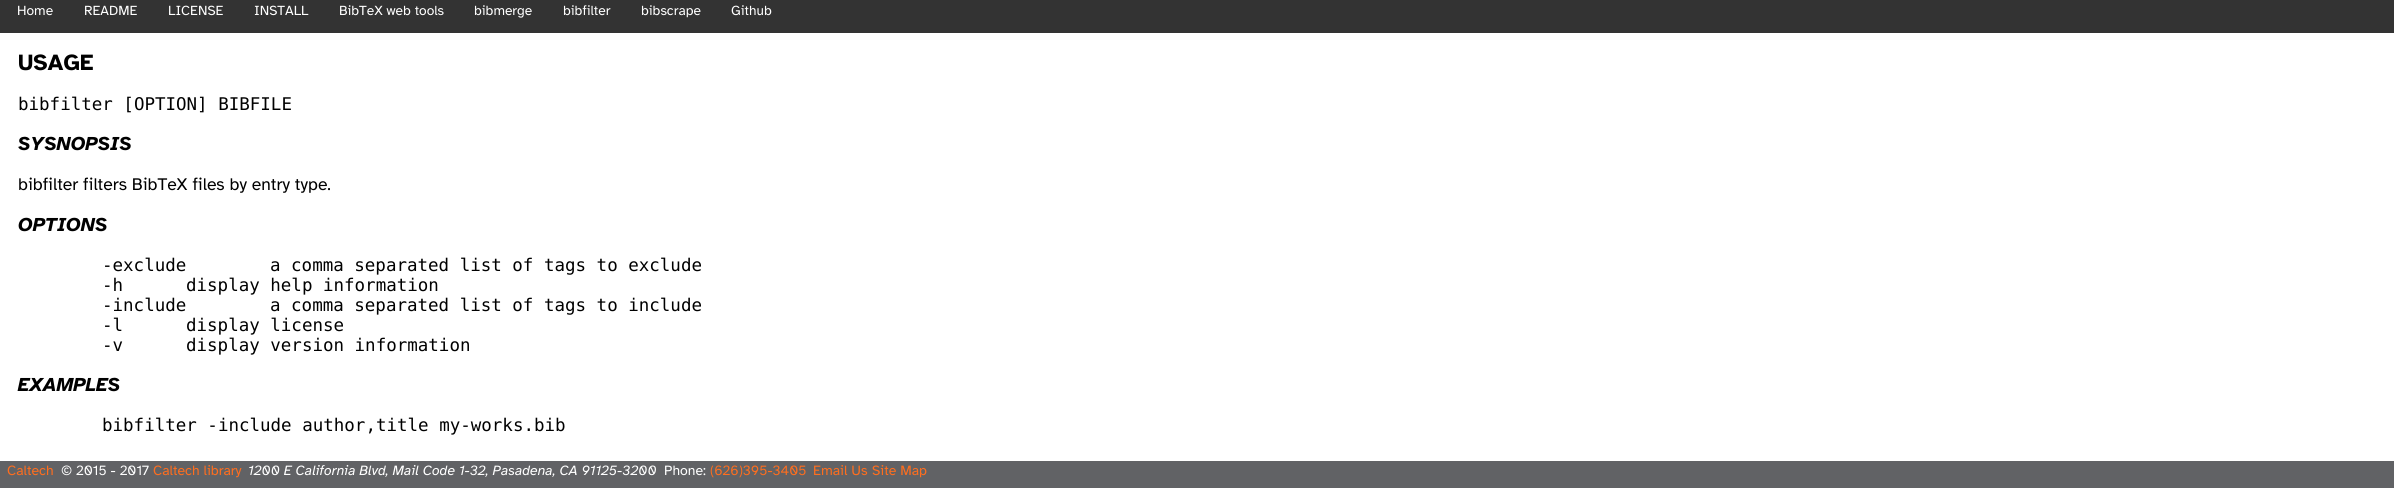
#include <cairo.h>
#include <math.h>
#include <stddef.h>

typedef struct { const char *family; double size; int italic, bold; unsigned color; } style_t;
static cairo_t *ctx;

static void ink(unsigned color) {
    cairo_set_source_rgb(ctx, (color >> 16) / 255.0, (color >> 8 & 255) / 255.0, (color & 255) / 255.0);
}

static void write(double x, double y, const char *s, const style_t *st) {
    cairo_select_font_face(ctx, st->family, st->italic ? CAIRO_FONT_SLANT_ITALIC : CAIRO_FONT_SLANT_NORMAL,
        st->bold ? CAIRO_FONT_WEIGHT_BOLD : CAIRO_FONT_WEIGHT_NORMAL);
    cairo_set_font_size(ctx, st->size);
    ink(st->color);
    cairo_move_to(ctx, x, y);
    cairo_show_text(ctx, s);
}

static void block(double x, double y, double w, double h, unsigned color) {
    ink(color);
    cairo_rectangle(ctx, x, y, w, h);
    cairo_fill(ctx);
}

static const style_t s1 = {"Atkinson Hyperlegible", 13.75, 0, 0, 0xffffff};
static const style_t s2 = {"Atkinson Hyperlegible", 23, 0, 1, 0x000000};
static const style_t s3 = {"DejaVu Sans Mono", 17.5, 0, 0, 0x000000};
static const style_t s4 = {"Atkinson Hyperlegible", 19.5, 1, 1, 0x000000};
static const style_t s5 = {"Atkinson Hyperlegible", 17.5, 0, 0, 0x000000};
static const style_t s6 = {"Atkinson Hyperlegible", 14, 0, 0, 0xff6e1e};
static const style_t s7 = {"Atkinson Hyperlegible", 14, 0, 0, 0xffffff};
static const style_t s8 = {"Atkinson Hyperlegible", 14, 1, 0, 0xffffff};

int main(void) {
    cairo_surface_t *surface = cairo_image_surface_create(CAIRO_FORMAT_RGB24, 2394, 488);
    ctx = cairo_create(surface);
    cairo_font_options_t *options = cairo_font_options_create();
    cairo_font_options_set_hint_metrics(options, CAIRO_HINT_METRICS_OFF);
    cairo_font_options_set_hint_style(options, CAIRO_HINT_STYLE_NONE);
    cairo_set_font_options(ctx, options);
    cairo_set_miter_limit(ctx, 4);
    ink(0xffffff);
    cairo_paint(ctx);
    block(0, 0, 2394, 33, 0x333333);
    write(17, 15, "Home", &s1);
    write(84, 15, "README", &s1);
    write(168, 15, "LICENSE", &s1);
    write(254, 15, "INSTALL", &s1);
    write(339, 15, "BibTeX web tools", &s1);
    write(474, 15, "bibmerge", &s1);
    write(563, 15, "bibfilter", &s1);
    write(641, 15, "bibscrape", &s1);
    write(731, 15, "Github", &s1);
    write(18, 70, "USAGE", &s2);
    write(18, 110, "bibfilter [OPTION] BIBFILE", &s3);
    write(18, 150, "SYSNOPSIS", &s4);
    write(18, 190, "bibfilter filters BibTeX files by entry type.", &s5);
    write(18, 231, "OPTIONS", &s4);
    write(102, 271, "-exclude", &s3);
    write(270, 271, "a comma separated list of tags to exclude", &s3);
    write(102, 291, "-h", &s3);
    write(186, 291, "display help information", &s3);
    write(102, 311, "-include", &s3);
    write(270, 311, "a comma separated list of tags to include", &s3);
    write(102, 331, "-l", &s3);
    write(186, 331, "display license", &s3);
    write(102, 351, "-v", &s3);
    write(186, 351, "display version information", &s3);
    write(18, 391, "EXAMPLES", &s4);
    write(102, 431, "bibfilter -include author,title my-works.bib", &s3);
    block(0, 461, 2394, 27, 0x616265);
    write(7, 475, "Caltech", &s6);
    write(61, 475, "© 2015 - 2017", &s7);
    write(153, 475, "Caltech library", &s6);
    write(248, 475, "1200 E California Blvd, Mail Code 1-32, Pasadena, CA 91125-3200", &s8);
    write(664, 475, "Phone:", &s7);
    write(710, 475, "(626)395-3405", &s6);
    write(813, 475, "Email Us", &s6);
    write(872, 475, "Site Map", &s6);
    cairo_surface_write_to_png(surface, "screenshot.png");
    cairo_font_options_destroy(options);
    cairo_destroy(ctx);
    cairo_surface_destroy(surface);
    return 0;
}
